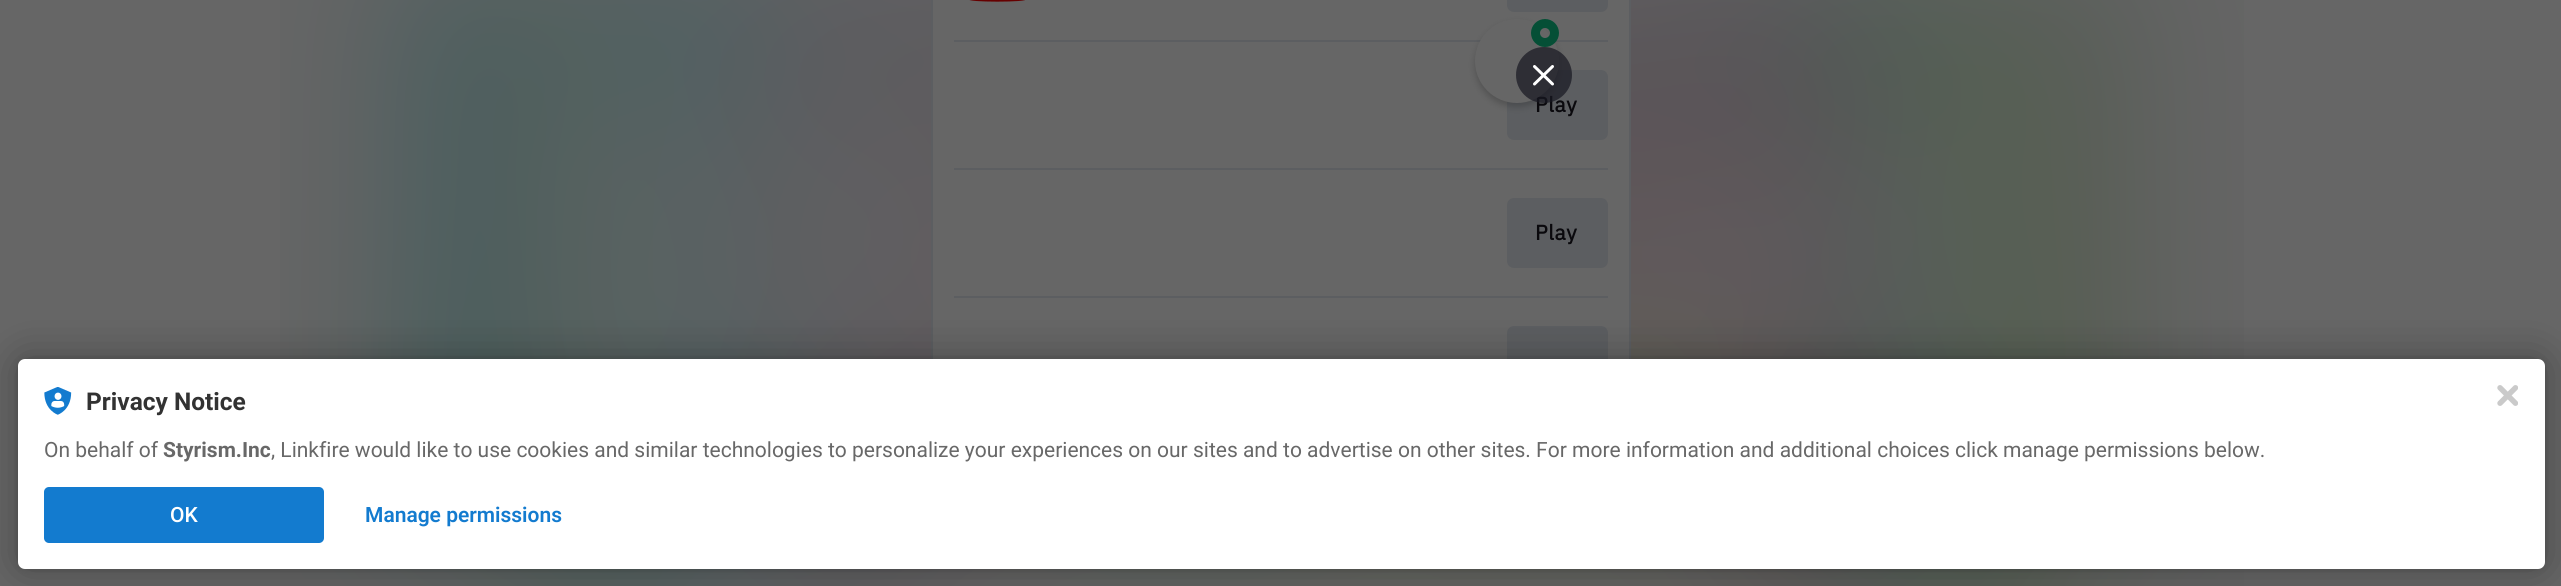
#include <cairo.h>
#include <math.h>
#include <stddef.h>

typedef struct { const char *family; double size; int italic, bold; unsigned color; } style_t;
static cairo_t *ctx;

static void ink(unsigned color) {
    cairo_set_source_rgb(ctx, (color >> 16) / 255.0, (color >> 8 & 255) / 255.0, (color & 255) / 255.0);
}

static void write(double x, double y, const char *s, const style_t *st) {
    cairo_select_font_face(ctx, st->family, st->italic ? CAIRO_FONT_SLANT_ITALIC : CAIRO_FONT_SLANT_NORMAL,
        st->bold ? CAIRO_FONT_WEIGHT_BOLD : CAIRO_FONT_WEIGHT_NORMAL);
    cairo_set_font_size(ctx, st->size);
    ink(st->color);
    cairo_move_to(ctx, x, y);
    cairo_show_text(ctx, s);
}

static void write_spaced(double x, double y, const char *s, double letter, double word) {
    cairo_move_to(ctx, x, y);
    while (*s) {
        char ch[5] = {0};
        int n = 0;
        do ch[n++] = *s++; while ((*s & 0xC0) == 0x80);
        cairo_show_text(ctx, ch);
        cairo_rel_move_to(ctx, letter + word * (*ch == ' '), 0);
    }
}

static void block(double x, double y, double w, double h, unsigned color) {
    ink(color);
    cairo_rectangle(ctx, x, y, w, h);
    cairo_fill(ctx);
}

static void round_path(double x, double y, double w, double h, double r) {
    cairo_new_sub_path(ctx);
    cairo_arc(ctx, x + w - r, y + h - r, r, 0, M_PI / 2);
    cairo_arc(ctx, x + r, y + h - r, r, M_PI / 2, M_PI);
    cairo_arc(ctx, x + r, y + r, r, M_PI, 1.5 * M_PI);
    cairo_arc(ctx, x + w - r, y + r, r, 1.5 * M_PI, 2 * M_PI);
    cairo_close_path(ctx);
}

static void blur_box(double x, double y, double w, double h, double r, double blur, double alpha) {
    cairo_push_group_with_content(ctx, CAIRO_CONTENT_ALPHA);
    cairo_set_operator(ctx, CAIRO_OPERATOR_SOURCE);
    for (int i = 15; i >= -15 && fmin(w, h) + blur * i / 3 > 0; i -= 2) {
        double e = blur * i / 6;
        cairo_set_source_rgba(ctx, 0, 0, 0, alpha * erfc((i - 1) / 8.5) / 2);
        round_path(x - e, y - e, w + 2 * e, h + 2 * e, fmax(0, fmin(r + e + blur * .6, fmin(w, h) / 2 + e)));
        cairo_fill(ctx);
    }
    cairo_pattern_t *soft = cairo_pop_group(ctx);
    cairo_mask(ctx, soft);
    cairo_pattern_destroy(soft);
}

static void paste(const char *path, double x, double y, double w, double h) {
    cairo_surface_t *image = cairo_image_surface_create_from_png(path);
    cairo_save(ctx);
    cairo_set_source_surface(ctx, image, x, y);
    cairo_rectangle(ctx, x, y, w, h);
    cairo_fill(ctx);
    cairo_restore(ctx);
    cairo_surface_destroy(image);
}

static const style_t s1 = {"Roboto", 24.5, 0, 1, 0x323232};
static const style_t s2 = {"Roboto", 21, 0, 0, 0x686868};
static const style_t s3 = {"Roboto", 21, 0, 1, 0x686868};
static const style_t s4 = {"Roboto Medium", 21, 0, 0, 0xffffff};
static const style_t s5 = {"Roboto SemiBold", 21, 0, 0, 0x137bcf};

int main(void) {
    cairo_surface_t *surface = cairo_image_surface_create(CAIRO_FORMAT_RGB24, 2561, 586);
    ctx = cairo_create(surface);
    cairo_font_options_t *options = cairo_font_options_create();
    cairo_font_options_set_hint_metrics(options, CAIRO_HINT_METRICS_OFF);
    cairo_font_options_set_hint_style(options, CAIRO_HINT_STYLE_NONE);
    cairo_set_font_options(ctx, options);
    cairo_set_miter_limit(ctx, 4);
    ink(0x666666);
    cairo_paint(ctx);
    paste("pic1.png", 280, 0, 1964, 586);
    cairo_rectangle(ctx, 932, -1, 698, 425);
    ink(0x5c5e61);
    cairo_stroke(ctx);
    block(933, 0, 696, 359, 0x666666);
    ink(0x5c5e61);
    round_path(1507, -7, 101, 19, 7);
    cairo_fill(ctx);
    block(954, 40, 654, 2, 0x5c5e61);
    round_path(1507, 70, 101, 70, 7);
    cairo_fill(ctx);
    ink(0x000000);
    blur_box(1475, 23, 84, 84, 42, 3.5, 0.2);
    cairo_select_font_face(ctx, "IBM Plex Sans", CAIRO_FONT_SLANT_NORMAL, CAIRO_FONT_WEIGHT_BOLD);
    cairo_set_font_size(ctx, 21);
    ink(0x0a090d);
    write_spaced(1535, 112, "Play", 0.5, 0);
    ink(0x666666);
    cairo_new_path(ctx);
    cairo_arc(ctx, 1517, 61, 42, 0, 2 * M_PI);
    cairo_fill(ctx);
    cairo_arc(ctx, 1545, 33, 9.5, 0, 2 * M_PI);
    ink(0x054f36);
    cairo_set_line_width(ctx, 9);
    cairo_stroke(ctx);
    cairo_set_source_rgba(ctx, 0.094, 0.09, 0.129, 0.7);
    cairo_arc(ctx, 1544, 75, 28, 0, 2 * M_PI);
    cairo_fill(ctx);
    cairo_new_path(ctx);
    cairo_move_to(ctx, 1534.5, 66.5);
    cairo_line_to(ctx, 1552.5, 84);
    cairo_move_to(ctx, 1534.5, 84);
    cairo_line_to(ctx, 1552.5, 66.5);
    ink(0xffffff);
    cairo_set_line_width(ctx, 3);
    cairo_set_line_cap(ctx, CAIRO_LINE_CAP_ROUND);
    cairo_set_line_join(ctx, CAIRO_LINE_JOIN_ROUND);
    cairo_stroke(ctx);
    paste("pic2.png", 969, 0, 56, 2);
    block(954, 168, 654, 2, 0x5c5e61);
    round_path(1507, 198, 101, 70, 7);
    cairo_fill(ctx);
    ink(0x0a090d);
    write_spaced(1535, 240, "Play", 0.5, 0);
    block(954, 296, 654, 2, 0x5c5e61);
    round_path(1507, 326, 101, 70, 7);
    cairo_fill(ctx);
    ink(0x000000);
    blur_box(18, 359, 2527, 210, 7, 3.5, 0.12);
    blur_box(18, 359, 2527, 210, 7, 21, 0.3);
    ink(0xffffff);
    round_path(18, 359, 2527, 210, 7);
    cairo_fill(ctx);
    paste("pic3.png", 44, 387, 28, 28);
    write(86, 410, "Privacy Notice", &s1);
    write(44, 457, "On behalf of", &s2);
    write(163, 457, "Styrism.Inc", &s3);
    write(271, 457, ", Linkfire would like to use cookies and similar technologies to personalize your experiences on our sites and to advertise on other sites. For more information and additional choices click manage permissions below.", &s2);
    ink(0x137bcf);
    round_path(44, 487, 280, 56, 5);
    cairo_fill(ctx);
    write(170, 522, "OK", &s4);
    write(365, 522, "Manage permissions", &s5);
    paste("pic4.png", 2497, 385, 21, 21);
    cairo_surface_write_to_png(surface, "screenshot.png");
    cairo_font_options_destroy(options);
    cairo_destroy(ctx);
    cairo_surface_destroy(surface);
    return 0;
}
